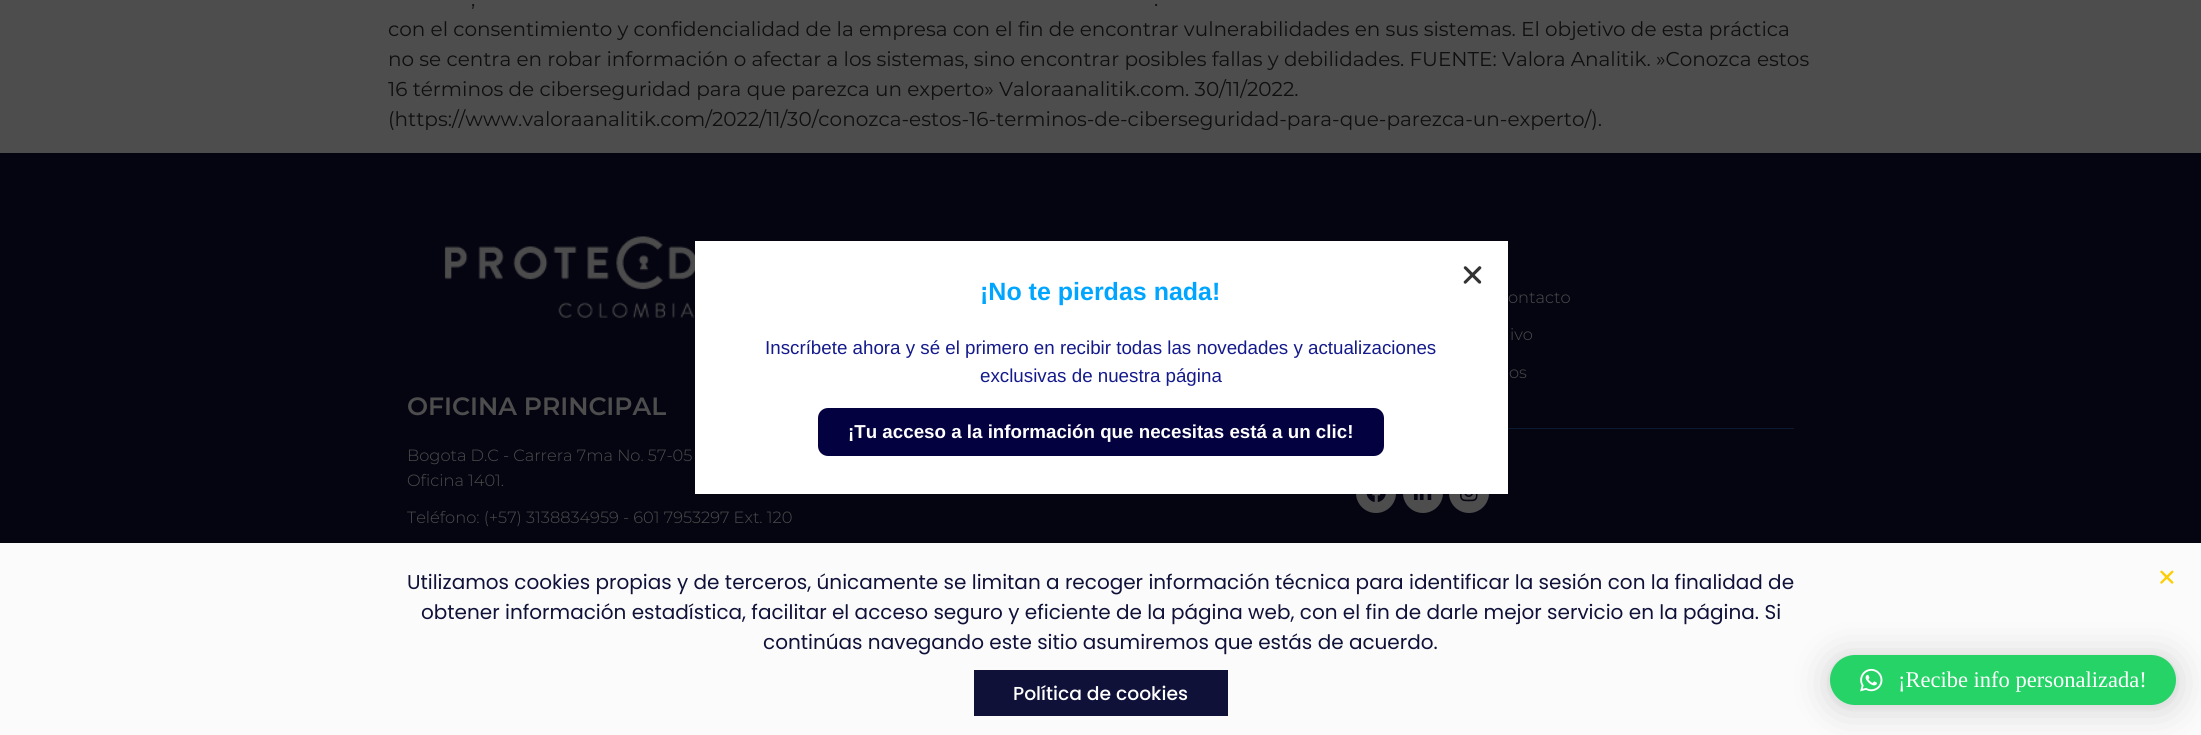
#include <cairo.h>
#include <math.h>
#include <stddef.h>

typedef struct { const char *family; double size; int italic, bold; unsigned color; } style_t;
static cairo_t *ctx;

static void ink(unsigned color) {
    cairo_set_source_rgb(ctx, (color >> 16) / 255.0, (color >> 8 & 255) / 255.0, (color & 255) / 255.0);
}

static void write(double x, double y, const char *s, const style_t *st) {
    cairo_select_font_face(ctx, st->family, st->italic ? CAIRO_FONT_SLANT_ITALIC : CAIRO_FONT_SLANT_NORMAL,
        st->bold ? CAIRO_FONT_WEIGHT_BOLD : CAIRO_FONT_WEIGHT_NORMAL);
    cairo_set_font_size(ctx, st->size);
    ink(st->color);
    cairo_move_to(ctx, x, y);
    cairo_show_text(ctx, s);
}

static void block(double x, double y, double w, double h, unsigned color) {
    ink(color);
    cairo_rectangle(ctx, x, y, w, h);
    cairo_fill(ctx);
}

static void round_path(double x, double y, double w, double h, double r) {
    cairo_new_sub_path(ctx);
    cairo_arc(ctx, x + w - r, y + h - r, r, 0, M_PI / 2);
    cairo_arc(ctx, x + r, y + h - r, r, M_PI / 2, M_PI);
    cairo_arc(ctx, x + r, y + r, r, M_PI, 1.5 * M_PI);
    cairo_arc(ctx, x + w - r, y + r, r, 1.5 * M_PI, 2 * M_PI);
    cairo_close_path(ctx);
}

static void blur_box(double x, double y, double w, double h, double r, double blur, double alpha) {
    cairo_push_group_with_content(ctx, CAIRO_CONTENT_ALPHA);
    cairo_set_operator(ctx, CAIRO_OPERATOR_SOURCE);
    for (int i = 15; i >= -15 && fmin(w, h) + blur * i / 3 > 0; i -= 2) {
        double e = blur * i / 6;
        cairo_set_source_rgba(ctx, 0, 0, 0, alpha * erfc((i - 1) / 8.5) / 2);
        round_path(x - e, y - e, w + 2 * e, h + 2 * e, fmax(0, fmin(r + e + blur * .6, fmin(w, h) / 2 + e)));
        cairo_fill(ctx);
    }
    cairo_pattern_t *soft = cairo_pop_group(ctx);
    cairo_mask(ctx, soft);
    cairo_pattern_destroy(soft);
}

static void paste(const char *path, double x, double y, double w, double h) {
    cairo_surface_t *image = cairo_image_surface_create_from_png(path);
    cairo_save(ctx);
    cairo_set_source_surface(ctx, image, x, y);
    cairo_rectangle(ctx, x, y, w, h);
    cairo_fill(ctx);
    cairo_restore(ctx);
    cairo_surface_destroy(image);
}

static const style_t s1 = {"Montserrat", 20, 0, 0, 0x0f0f0f};
static const style_t s2 = {"Liberation Sans", 25, 0, 1, 0x00a5ff};
static const style_t s3 = {"Liberation Sans", 18.75, 0, 0, 0x141a8b};
static const style_t s4 = {"Liberation Sans", 18.75, 0, 1, 0xffffff};
static const style_t s5 = {"Montserrat Light", 16.25, 0, 0, 0x4d4d4d};
static const style_t s6 = {"Montserrat SemiBold", 25, 0, 0, 0x4d4d4d};
static const style_t s7 = {"Poppins", 20, 0, 0, 0x101139};
static const style_t s8 = {"Poppins Medium", 18.75, 0, 0, 0xffffff};
static const style_t s9 = {"Liberation Serif", 22.5, 0, 0, 0xffffff};

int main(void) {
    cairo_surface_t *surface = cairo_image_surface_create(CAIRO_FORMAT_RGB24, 2201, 735);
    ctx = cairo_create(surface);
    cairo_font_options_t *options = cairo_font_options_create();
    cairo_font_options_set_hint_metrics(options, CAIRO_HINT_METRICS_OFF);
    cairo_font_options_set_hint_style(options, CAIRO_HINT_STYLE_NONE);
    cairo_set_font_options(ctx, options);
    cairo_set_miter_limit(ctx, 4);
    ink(0x4d4d4d);
    cairo_paint(ctx);
    write(471, 6, ",", &s1);
    write(1154, 6, ".", &s1);
    write(388, 36, "con el consentimiento y confidencialidad de la empresa con el fin de encontrar vulnerabilidades en sus sistemas. El objetivo de esta práctica", &s1);
    write(388, 66, "no se centra en robar información o afectar a los sistemas, sino encontrar posibles fallas y debilidades. FUENTE: Valora Analitik. »Conozca estos", &s1);
    write(388, 96, "16 términos de ciberseguridad para que parezca un experto» Valoraanalitik.com. 30/11/2022.", &s1);
    write(388, 126, "(https://www.valoraanalitik.com/2022/11/30/conozca-estos-16-terminos-de-ciberseguridad-para-que-parezca-un-experto/).", &s1);
    block(0, 153, 2201, 390, 0x050512);
    ink(0x4d4d4d);
    cairo_new_path(ctx);
    cairo_arc(ctx, 1376, 493, 20, 0, 2 * M_PI);
    cairo_fill(ctx);
    cairo_arc(ctx, 1423, 493, 20, 0, 2 * M_PI);
    cairo_fill(ctx);
    cairo_arc(ctx, 1469, 493, 20, 0, 2 * M_PI);
    cairo_fill(ctx);
    block(695, 241, 813, 253, 0xffffff);
    paste("pic1.png", 1463, 266, 19, 18);
    write(980, 300, "¡No te pierdas nada!", &s2);
    write(765, 354, "Inscríbete ahora y sé el primero en recibir todas las novedades y actualizaciones", &s3);
    write(980, 382, "exclusivas de nuestra página", &s3);
    ink(0x03013f);
    round_path(818, 408, 566, 48, 10);
    cairo_fill(ctx);
    write(848, 438, "¡Tu acceso a la información que necesitas está a un clic!", &s4);
    write(1508, 303, "ontacto", &s5);
    write(1510, 340, "ivo", &s5);
    write(1509, 378, "os", &s5);
    block(1508, 428, 286, 1, 0x0b1931);
    paste("pic2.png", 1366, 494, 20, 8);
    paste("pic3.png", 1414, 494, 18, 6);
    paste("pic4.png", 1460, 494, 18, 8);
    paste("pic5.png", 444, 236, 251, 82);
    write(407, 415, "OFICINA PRINCIPAL", &s6);
    write(407, 461, "Bogota D.C - Carrera 7ma No. 57-05", &s5);
    write(407, 486, "Oficina 1401.", &s5);
    write(407, 523, "Teléfono: (+57) 3138834959 - 601 7953297 Ext. 120", &s5);
    ink(0x000000);
    blur_box(-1, 549, 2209, 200, 0, 14.5, 0.2);
    block(0, 543, 2201, 192, 0xfbfbfb);
    write(407, 589, "Utilizamos cookies propias y de terceros, únicamente se limitan a recoger información técnica para identificar la sesión con la finalidad de", &s7);
    write(421, 619, "obtener información estadística, facilitar el acceso seguro y eficiente de la página web, con el fin de darle mejor servicio en la página. Si", &s7);
    write(763, 649, "continúas navegando este sitio asumiremos que estás de acuerdo.", &s7);
    block(974, 670, 254, 46, 0x101139);
    write(1013, 700, "Política de cookies", &s8);
    paste("pic6.png", 2160, 570, 14, 14);
    ink(0x000000);
    blur_box(1830, 658, 346, 50, 25, 20, 0.16);
    blur_box(1830, 656, 346, 50, 25, 4, 0.06);
    ink(0x25d366);
    round_path(1830, 655, 346, 50, 25);
    cairo_fill(ctx);
    paste("pic7.png", 1860, 668, 23, 24);
    write(1898, 687, "¡Recibe info personalizada!", &s9);
    cairo_surface_write_to_png(surface, "screenshot.png");
    cairo_font_options_destroy(options);
    cairo_destroy(ctx);
    cairo_surface_destroy(surface);
    return 0;
}
